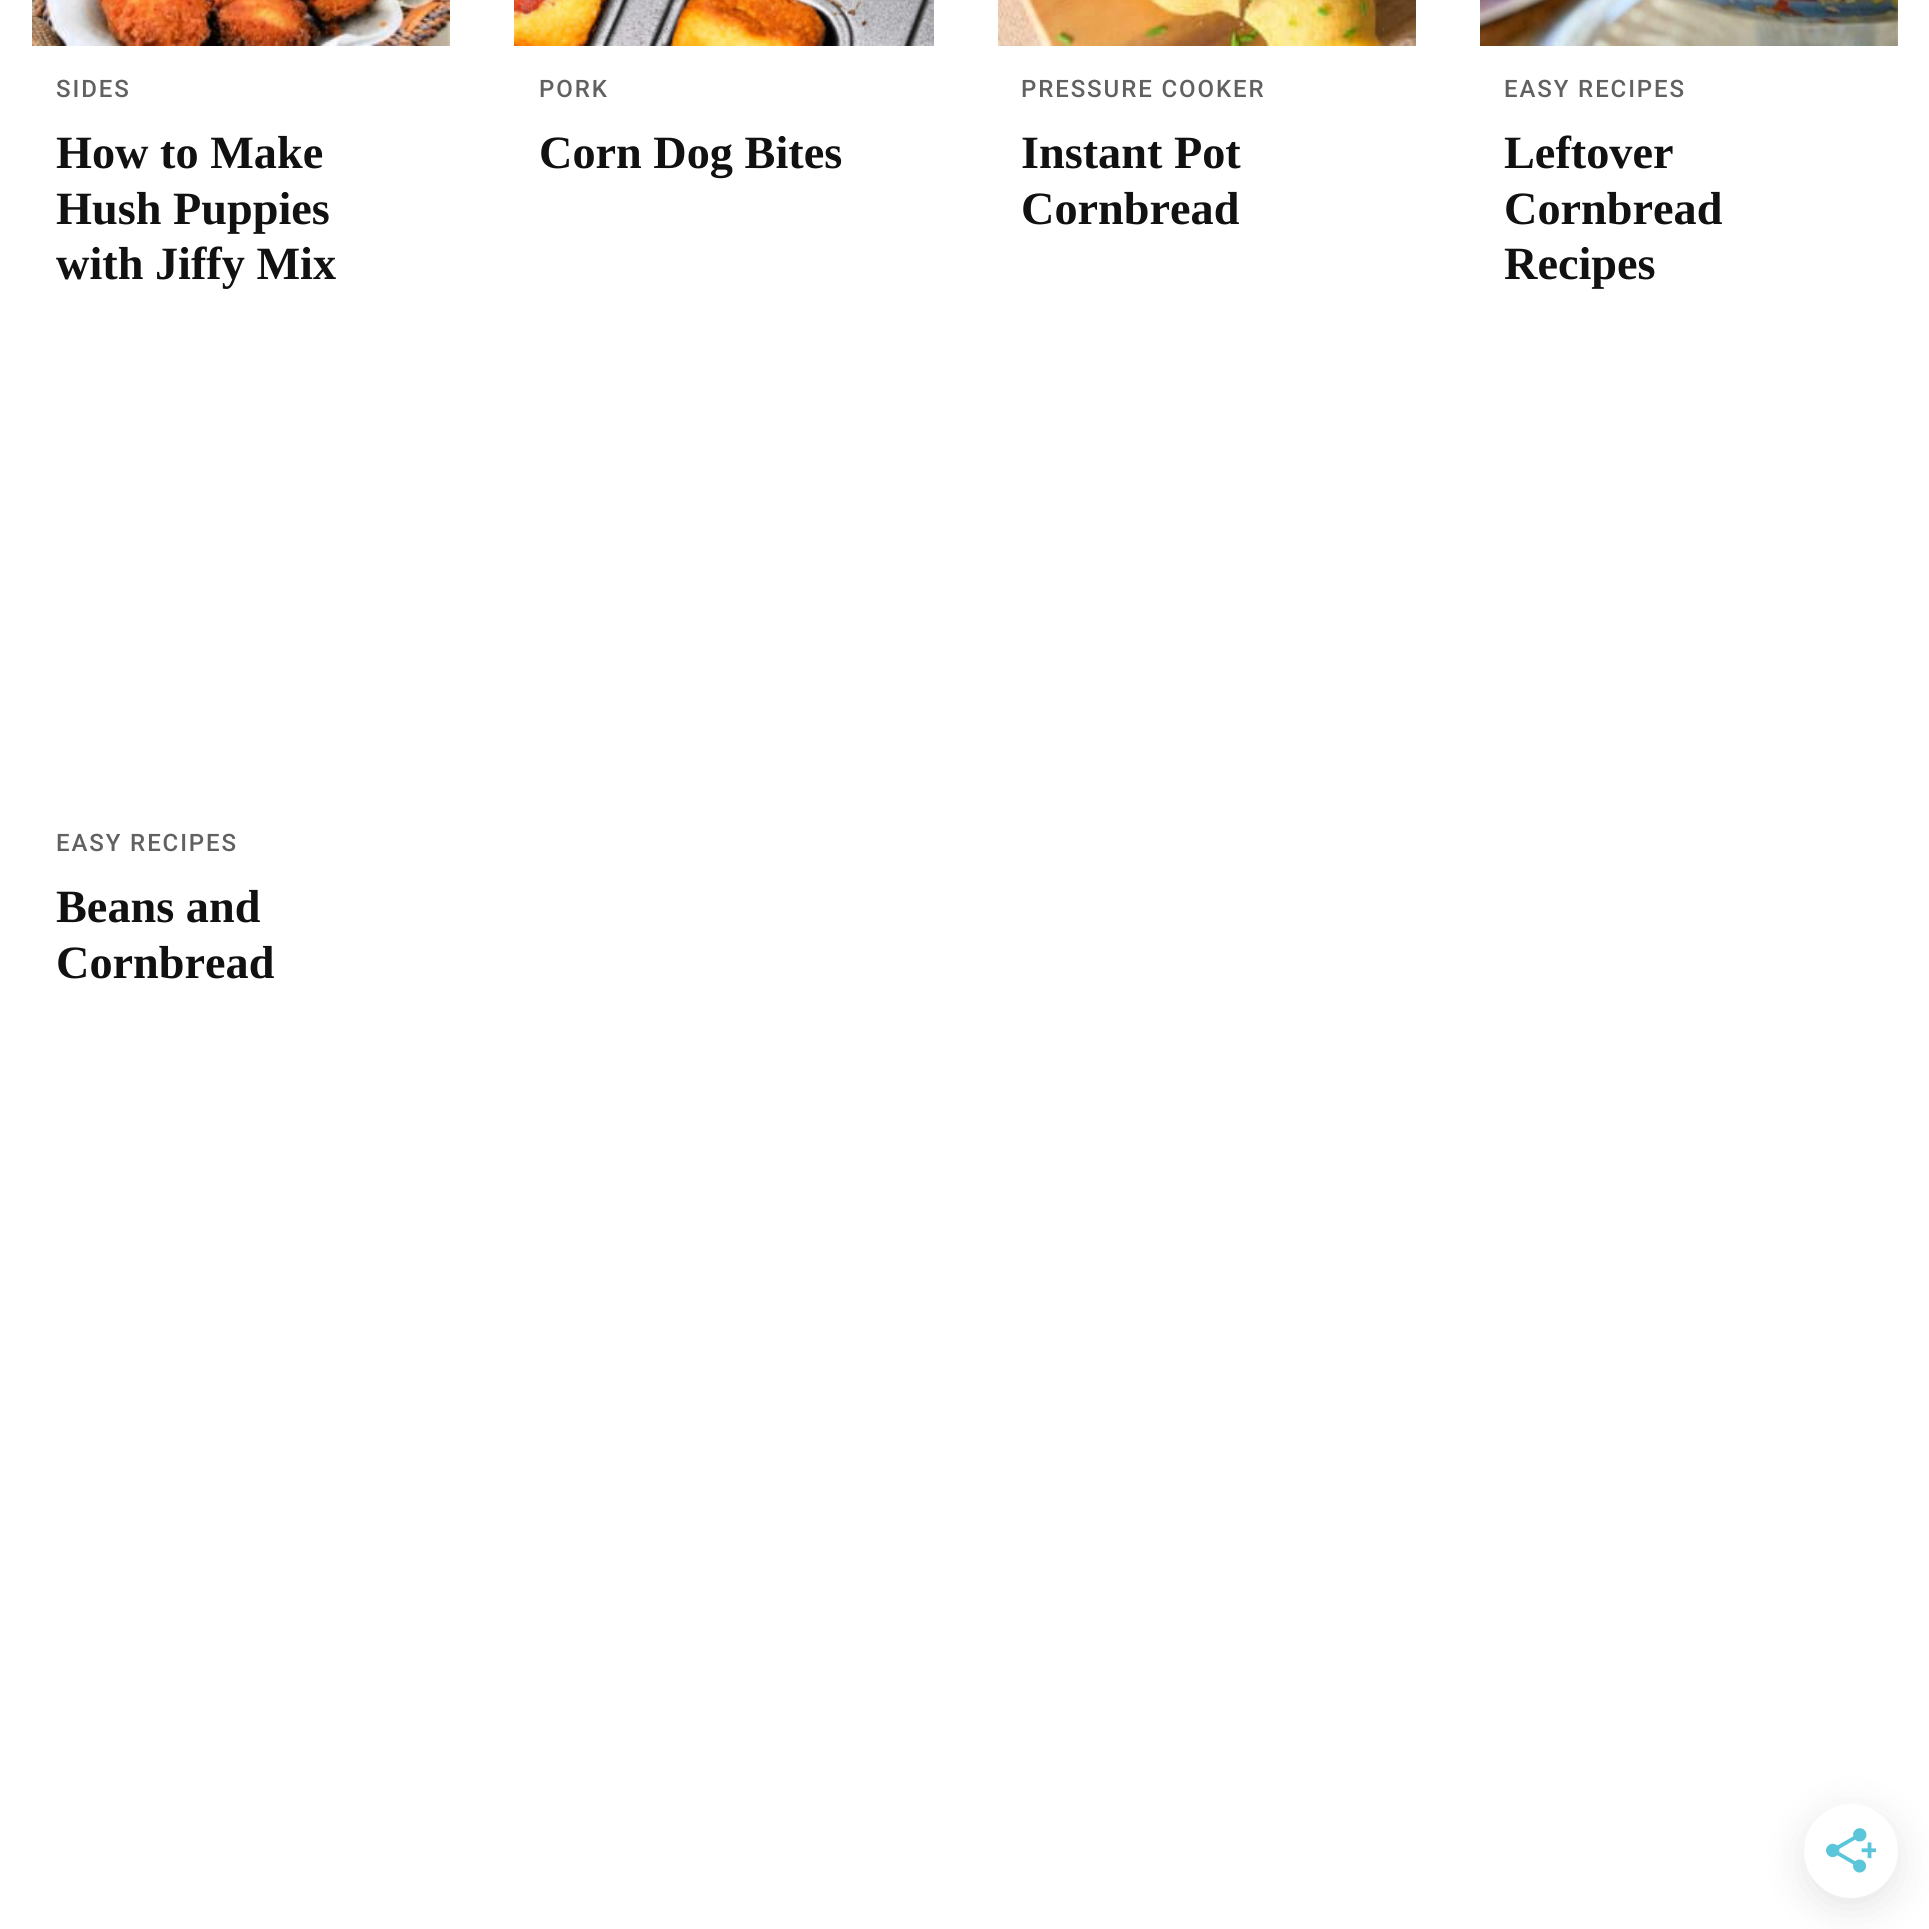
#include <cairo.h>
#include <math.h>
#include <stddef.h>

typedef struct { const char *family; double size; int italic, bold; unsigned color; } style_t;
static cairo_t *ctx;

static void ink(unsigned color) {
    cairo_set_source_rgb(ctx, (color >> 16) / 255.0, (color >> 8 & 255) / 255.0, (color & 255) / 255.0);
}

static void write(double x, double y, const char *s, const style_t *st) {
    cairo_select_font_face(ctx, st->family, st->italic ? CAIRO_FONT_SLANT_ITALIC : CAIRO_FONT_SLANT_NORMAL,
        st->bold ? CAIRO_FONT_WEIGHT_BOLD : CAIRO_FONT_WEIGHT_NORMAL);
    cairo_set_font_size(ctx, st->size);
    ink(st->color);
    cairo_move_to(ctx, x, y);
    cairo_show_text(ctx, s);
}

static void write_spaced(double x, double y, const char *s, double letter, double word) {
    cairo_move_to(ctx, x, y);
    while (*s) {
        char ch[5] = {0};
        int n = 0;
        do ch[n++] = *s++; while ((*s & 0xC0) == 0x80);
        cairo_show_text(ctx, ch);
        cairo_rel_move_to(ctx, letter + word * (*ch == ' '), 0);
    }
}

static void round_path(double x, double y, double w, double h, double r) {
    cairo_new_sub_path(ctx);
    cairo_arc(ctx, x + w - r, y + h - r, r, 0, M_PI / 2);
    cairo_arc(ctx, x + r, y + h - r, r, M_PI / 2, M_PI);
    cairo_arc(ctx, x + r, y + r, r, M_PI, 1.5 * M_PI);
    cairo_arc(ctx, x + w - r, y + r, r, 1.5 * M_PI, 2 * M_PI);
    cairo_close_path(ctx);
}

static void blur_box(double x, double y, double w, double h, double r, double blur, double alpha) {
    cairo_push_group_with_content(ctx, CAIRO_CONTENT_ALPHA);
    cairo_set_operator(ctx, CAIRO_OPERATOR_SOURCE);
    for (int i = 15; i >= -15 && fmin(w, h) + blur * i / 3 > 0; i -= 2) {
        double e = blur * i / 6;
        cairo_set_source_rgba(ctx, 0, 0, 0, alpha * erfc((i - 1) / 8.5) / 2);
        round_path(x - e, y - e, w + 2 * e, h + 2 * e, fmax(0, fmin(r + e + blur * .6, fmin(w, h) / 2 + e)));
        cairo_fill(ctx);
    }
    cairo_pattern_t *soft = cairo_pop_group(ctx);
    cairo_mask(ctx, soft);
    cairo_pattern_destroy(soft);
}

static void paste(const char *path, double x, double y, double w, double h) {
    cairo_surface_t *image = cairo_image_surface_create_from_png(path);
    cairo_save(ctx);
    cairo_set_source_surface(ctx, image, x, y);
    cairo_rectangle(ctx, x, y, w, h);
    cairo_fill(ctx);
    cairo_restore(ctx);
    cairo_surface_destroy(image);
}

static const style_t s1 = {"Liberation Serif", 46.25, 0, 1, 0x111111};

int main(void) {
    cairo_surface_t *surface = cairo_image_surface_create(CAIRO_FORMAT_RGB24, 1929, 1929);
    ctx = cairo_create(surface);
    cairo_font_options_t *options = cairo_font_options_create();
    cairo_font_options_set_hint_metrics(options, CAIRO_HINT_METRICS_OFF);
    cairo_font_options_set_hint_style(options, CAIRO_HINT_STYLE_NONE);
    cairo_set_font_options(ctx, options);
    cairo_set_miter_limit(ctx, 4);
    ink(0xffffff);
    cairo_paint(ctx);
    paste("pic1.png", 32, 0, 418, 46);
    cairo_select_font_face(ctx, "Roboto Medium", CAIRO_FONT_SLANT_NORMAL, CAIRO_FONT_WEIGHT_NORMAL);
    cairo_set_font_size(ctx, 24);
    ink(0x616161);
    write_spaced(56, 97, "SIDES", 1.9, 0);
    write(56, 168, "How to Make", &s1);
    write(56, 224, "Hush Puppies", &s1);
    write(56, 279, "with Jiffy Mix", &s1);
    paste("pic2.png", 514, 0, 420, 46);
    cairo_select_font_face(ctx, "Roboto Medium", CAIRO_FONT_SLANT_NORMAL, CAIRO_FONT_WEIGHT_NORMAL);
    cairo_set_font_size(ctx, 24);
    ink(0x616161);
    write_spaced(539, 97, "PORK", 1.9, 0);
    write(539, 168, "Corn Dog Bites", &s1);
    paste("pic3.png", 998, 0, 418, 46);
    cairo_select_font_face(ctx, "Roboto Medium", CAIRO_FONT_SLANT_NORMAL, CAIRO_FONT_WEIGHT_NORMAL);
    cairo_set_font_size(ctx, 24);
    ink(0x616161);
    write_spaced(1021, 97, "PRESSURE COOKER", 1.9, 0);
    write(1021, 168, "Instant Pot", &s1);
    write(1021, 224, "Cornbread", &s1);
    paste("pic4.png", 1480, 0, 418, 46);
    cairo_select_font_face(ctx, "Roboto Medium", CAIRO_FONT_SLANT_NORMAL, CAIRO_FONT_WEIGHT_NORMAL);
    cairo_set_font_size(ctx, 24);
    ink(0x616161);
    write_spaced(1504, 97, "EASY RECIPES", 1.9, 0);
    write(1504, 168, "Leftover", &s1);
    write(1504, 224, "Cornbread", &s1);
    write(1504, 279, "Recipes", &s1);
    cairo_select_font_face(ctx, "Roboto Medium", CAIRO_FONT_SLANT_NORMAL, CAIRO_FONT_WEIGHT_NORMAL);
    cairo_set_font_size(ctx, 24);
    ink(0x616161);
    write_spaced(56, 851, "EASY RECIPES", 1.9, 0);
    write(56, 922, "Beans and", &s1);
    write(56, 978, "Cornbread", &s1);
    ink(0x000000);
    blur_box(1804, 1814, 94, 94, 47, 20, 0.1);
    ink(0xffffff);
    cairo_arc(ctx, 1851, 1851, 47, 0, 2 * M_PI);
    cairo_fill(ctx);
    paste("pic5.png", 1826, 1828, 50, 45);
    cairo_surface_write_to_png(surface, "screenshot.png");
    cairo_font_options_destroy(options);
    cairo_destroy(ctx);
    cairo_surface_destroy(surface);
    return 0;
}
